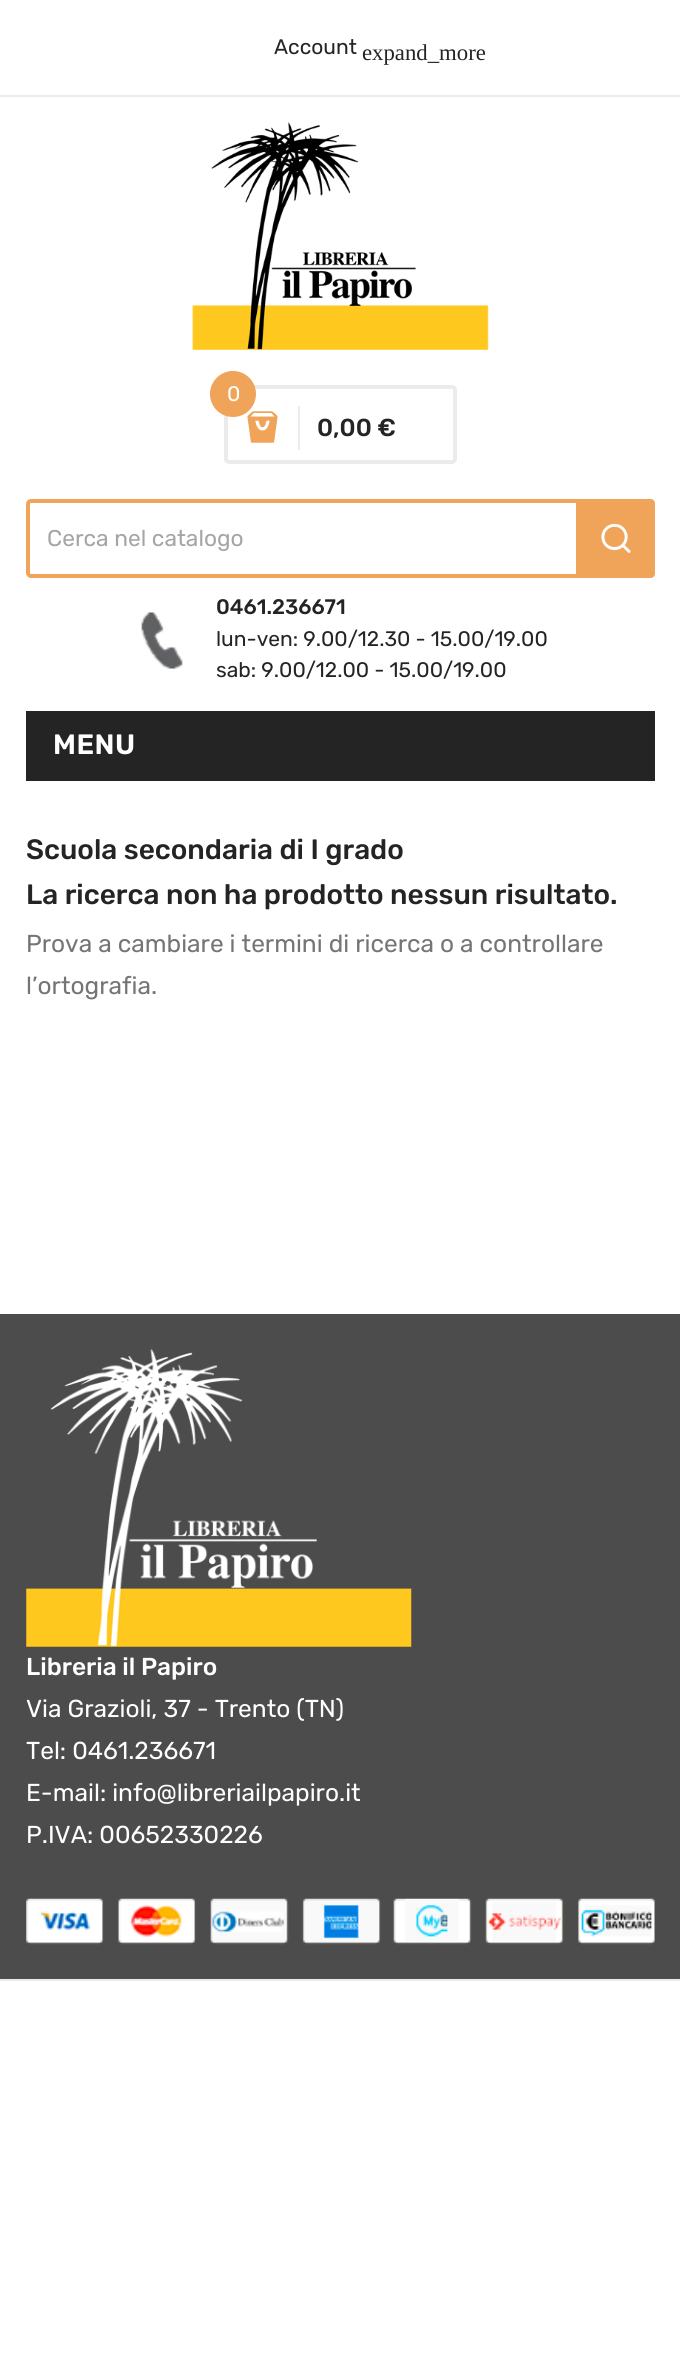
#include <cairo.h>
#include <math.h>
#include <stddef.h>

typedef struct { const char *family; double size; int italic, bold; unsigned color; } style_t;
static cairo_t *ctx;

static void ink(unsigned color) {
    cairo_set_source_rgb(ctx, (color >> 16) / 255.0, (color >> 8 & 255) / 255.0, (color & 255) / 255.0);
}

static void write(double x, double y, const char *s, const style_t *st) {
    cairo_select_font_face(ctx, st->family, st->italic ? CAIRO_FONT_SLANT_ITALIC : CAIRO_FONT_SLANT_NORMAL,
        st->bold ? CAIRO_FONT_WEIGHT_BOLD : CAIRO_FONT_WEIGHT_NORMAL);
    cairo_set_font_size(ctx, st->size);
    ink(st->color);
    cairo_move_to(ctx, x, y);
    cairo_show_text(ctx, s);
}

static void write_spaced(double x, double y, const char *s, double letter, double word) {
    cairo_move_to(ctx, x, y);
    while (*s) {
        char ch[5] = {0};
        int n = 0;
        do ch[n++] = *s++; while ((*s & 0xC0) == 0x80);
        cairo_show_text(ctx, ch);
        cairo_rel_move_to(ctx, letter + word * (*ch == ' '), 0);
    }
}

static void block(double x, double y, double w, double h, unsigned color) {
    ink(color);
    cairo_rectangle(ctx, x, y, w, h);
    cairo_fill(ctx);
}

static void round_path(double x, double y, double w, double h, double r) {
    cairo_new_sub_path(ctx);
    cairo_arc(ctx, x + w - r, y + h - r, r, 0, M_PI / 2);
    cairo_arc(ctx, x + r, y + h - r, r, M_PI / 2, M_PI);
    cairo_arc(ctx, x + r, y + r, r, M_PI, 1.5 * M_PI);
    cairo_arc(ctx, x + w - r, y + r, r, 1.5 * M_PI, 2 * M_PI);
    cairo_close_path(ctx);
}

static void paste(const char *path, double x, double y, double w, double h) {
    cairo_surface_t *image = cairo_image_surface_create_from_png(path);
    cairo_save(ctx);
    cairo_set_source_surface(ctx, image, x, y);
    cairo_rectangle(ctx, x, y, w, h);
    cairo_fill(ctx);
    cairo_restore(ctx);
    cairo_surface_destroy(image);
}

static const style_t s1 = {"Rubik", 21, 0, 0, 0x242424};
static const style_t s2 = {"Liberation Serif", 22.75, 0, 0, 0x242424};
static const style_t s3 = {"Rubik", 21, 0, 0, 0xffffff};
static const style_t s4 = {"Rubik Medium", 24.5, 0, 0, 0x242424};
static const style_t s5 = {"Rubik", 22.75, 0, 0, 0xa5a5a5};
static const style_t s6 = {"Rubik Medium", 21, 0, 0, 0x242424};
static const style_t s7 = {"Rubik Medium", 28, 0, 0, 0x242424};
static const style_t s8 = {"Rubik", 24.5, 0, 0, 0x757575};
static const style_t s9 = {"Rubik Medium", 24.5, 0, 0, 0xffffff};
static const style_t s10 = {"Rubik", 24.5, 0, 0, 0xffffff};

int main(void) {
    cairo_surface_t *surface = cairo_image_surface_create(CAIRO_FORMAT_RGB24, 680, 2370);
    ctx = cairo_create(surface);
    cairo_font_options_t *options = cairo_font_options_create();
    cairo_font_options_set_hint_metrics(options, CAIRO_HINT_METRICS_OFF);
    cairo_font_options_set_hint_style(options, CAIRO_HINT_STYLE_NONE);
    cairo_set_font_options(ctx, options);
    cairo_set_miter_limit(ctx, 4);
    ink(0xffffff);
    cairo_paint(ctx);
    block(0, 95, 680, 2, 0xebebeb);
    write(274, 54, "Account", &s1);
    write(362, 60, "expand_more", &s2);
    paste("pic1.png", 192, 122, 297, 228);
    round_path(226, 387, 229, 75, 3);
    ink(0xebebeb);
    cairo_set_line_width(ctx, 4);
    cairo_stroke(ctx);
    paste("pic2.png", 247, 411, 31, 32);
    ink(0xf0a459);
    cairo_arc(ctx, 233, 394, 23, 0, 2 * M_PI);
    cairo_fill(ctx);
    write(227, 401, "0", &s3);
    block(298, 406, 2, 44, 0xebebeb);
    write(317, 436, "0,00 €", &s4);
    round_path(28, 501, 625, 75, 3);
    ink(0xf0a459);
    cairo_stroke(ctx);
    write(47, 546, "Cerca nel catalogo", &s5);
    ink(0xf0a459);
    cairo_new_path(ctx);
    cairo_move_to(ctx, 576, 499);
    cairo_line_to(ctx, 650, 499);
    cairo_curve_to(ctx, 653, 499, 655, 501, 655, 504);
    cairo_line_to(ctx, 655, 573);
    cairo_curve_to(ctx, 655, 576, 653, 578, 650, 578);
    cairo_line_to(ctx, 576, 578);
    cairo_close_path(ctx);
    cairo_fill(ctx);
    paste("pic3.png", 601, 523, 30, 30);
    paste("pic4.png", 141, 612, 42, 57);
    write(216, 614, "0461.236671", &s6);
    write(216, 646, "lun-ven: 9.00/12.30 - 15.00/19.00", &s1);
    write(216, 677, "sab: 9.00/12.00 - 15.00/19.00", &s1);
    block(26, 711, 629, 70, 0x242424);
    cairo_select_font_face(ctx, "Rubik SemiBold", CAIRO_FONT_SLANT_NORMAL, CAIRO_FONT_WEIGHT_NORMAL);
    cairo_set_font_size(ctx, 28);
    ink(0xffffff);
    write_spaced(53, 754, "MENU", 0.5, 0);
    write(26, 859, "Scuola secondaria di I grado", &s7);
    write(26, 904, "La ricerca non ha prodotto nessun risultato.", &s7);
    write(26, 952, "Prova a cambiare i termini di ricerca o a controllare", &s8);
    write(26, 994, "l’ortografia.", &s8);
    block(0, 1314, 680, 665, 0x4c4c4c);
    paste("pic5.png", 26, 1349, 386, 298);
    write(26, 1675, "Libreria il Papiro", &s9);
    write(26, 1717, "Via Grazioli, 37 - Trento (TN)", &s10);
    write(26, 1759, "Tel: 0461.236671", &s10);
    write(26, 1801, "E-mail: info@libreriailpapiro.it", &s10);
    write(26, 1843, "P.IVA: 00652330226", &s10);
    paste("pic6.png", 26, 1898, 629, 47);
    block(0, 1979, 680, 2, 0xebebeb);
    cairo_surface_write_to_png(surface, "screenshot.png");
    cairo_font_options_destroy(options);
    cairo_destroy(ctx);
    cairo_surface_destroy(surface);
    return 0;
}
